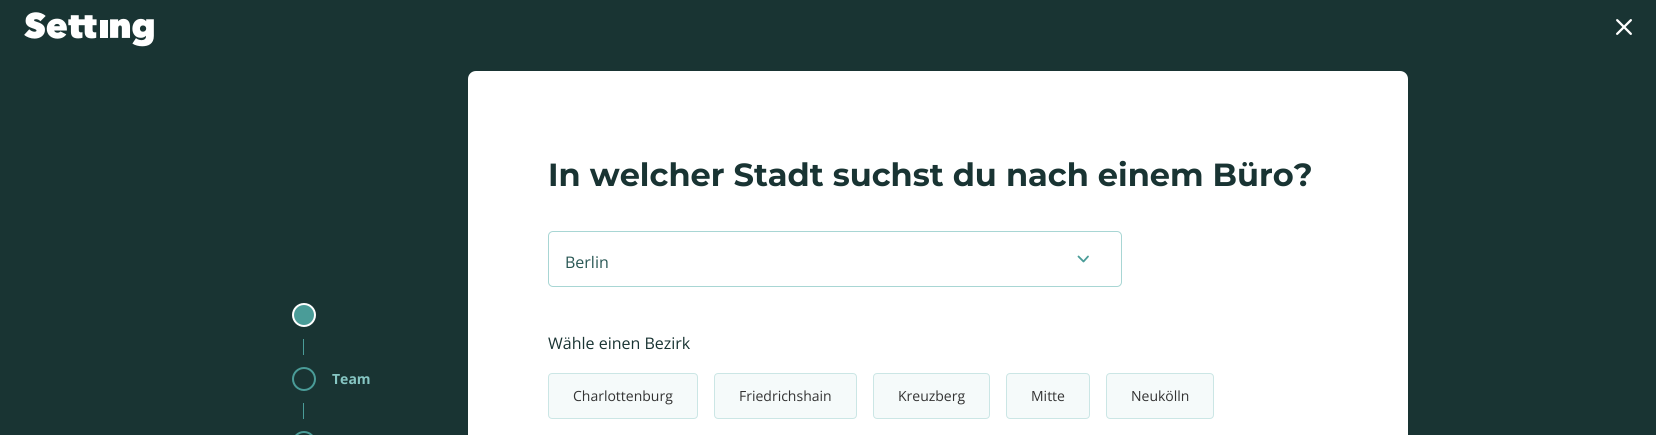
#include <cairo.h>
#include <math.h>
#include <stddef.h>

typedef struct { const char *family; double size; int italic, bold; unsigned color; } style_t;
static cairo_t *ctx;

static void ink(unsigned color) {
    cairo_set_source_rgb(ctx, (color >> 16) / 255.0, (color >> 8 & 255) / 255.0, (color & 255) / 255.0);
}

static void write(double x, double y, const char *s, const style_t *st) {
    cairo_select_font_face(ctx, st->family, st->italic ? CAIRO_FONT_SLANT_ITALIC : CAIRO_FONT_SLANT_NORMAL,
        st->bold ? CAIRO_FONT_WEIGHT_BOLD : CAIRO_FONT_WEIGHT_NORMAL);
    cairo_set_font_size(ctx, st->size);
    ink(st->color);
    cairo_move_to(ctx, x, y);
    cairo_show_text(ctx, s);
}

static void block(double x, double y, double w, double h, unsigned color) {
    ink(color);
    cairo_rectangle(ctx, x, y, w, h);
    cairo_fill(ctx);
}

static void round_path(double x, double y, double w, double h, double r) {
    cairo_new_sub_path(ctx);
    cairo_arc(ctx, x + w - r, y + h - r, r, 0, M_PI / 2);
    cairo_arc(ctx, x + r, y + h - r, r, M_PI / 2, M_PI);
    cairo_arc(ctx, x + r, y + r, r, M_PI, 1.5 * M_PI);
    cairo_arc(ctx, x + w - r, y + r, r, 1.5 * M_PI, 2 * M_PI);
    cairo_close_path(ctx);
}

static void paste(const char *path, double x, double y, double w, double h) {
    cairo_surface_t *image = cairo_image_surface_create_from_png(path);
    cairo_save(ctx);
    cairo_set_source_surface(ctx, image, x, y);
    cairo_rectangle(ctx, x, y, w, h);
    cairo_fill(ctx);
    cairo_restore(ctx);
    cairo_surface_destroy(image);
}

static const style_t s1 = {"Open Sans", 14, 0, 1, 0x86c6c3};
static const style_t s2 = {"Montserrat", 32, 0, 1, 0x193433};
static const style_t s3 = {"Open Sans", 16, 0, 0, 0x295754};
static const style_t s4 = {"Open Sans", 16, 0, 0, 0x193433};
static const style_t s5 = {"Open Sans", 14, 0, 0, 0x333333};

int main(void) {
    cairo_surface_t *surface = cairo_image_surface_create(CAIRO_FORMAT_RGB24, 1656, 435);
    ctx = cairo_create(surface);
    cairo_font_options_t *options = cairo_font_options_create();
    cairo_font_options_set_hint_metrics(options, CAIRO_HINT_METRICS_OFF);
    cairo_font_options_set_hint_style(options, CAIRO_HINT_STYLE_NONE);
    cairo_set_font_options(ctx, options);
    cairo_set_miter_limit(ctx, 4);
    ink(0x193433);
    cairo_paint(ctx);
    paste("pic1.png", 24, 12, 130, 35);
    paste("pic2.png", 1616, 19, 16, 16);
    ink(0x4a9c98);
    cairo_arc(ctx, 304, 315, 11, 0, 2 * M_PI);
    cairo_fill_preserve(ctx);
    ink(0xffffff);
    cairo_stroke(ctx);
    block(303, 339, 1, 16, 0x4a9c98);
    cairo_arc(ctx, 304, 379, 11, 0, 2 * M_PI);
    cairo_stroke(ctx);
    write(332, 384, "Team", &s1);
    block(303, 403, 1, 16, 0x4a9c98);
    round_path(293, 432, 22, 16, 11);
    cairo_stroke(ctx);
    ink(0xffffff);
    cairo_new_path(ctx);
    cairo_move_to(ctx, 476, 71);
    cairo_line_to(ctx, 1400, 71);
    cairo_curve_to(ctx, 1404.5, 71, 1408, 74.5, 1408, 79);
    cairo_line_to(ctx, 1408, 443);
    cairo_line_to(ctx, 468, 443);
    cairo_line_to(ctx, 468, 79);
    cairo_curve_to(ctx, 468, 74.5, 471.5, 71, 476, 71);
    cairo_close_path(ctx);
    cairo_fill(ctx);
    write(548, 186, "In welcher Stadt suchst du nach einem Büro?", &s2);
    cairo_new_path(ctx);
    cairo_move_to(ctx, 1078.5, 256.5);
    cairo_line_to(ctx, 1083.5, 261.5);
    cairo_line_to(ctx, 1088, 256.5);
    ink(0x4a9c98);
    cairo_set_line_width(ctx, 1.8);
    cairo_set_line_cap(ctx, CAIRO_LINE_CAP_ROUND);
    cairo_set_line_join(ctx, CAIRO_LINE_JOIN_ROUND);
    cairo_stroke(ctx);
    round_path(548.5, 231.5, 573, 55, 4.5);
    ink(0xa8d6d4);
    cairo_set_line_width(ctx, 1);
    cairo_set_line_cap(ctx, CAIRO_LINE_CAP_BUTT);
    cairo_set_line_join(ctx, CAIRO_LINE_JOIN_MITER);
    cairo_stroke(ctx);
    write(565, 268, "Berlin", &s3);
    write(548, 349, "Wähle einen Bezirk", &s4);
    ink(0xf5fafa);
    round_path(548.5, 373.5, 149, 45, 3.5);
    cairo_fill_preserve(ctx);
    ink(0xcbe6e5);
    cairo_stroke(ctx);
    write(573, 401, "Charlottenburg", &s5);
    ink(0xf5fafa);
    round_path(714.5, 373.5, 142, 45, 3.5);
    cairo_fill_preserve(ctx);
    ink(0xcbe6e5);
    cairo_stroke(ctx);
    write(739, 401, "Friedrichshain", &s5);
    ink(0xf5fafa);
    round_path(873.5, 373.5, 116, 45, 3.5);
    cairo_fill_preserve(ctx);
    ink(0xcbe6e5);
    cairo_stroke(ctx);
    write(898, 401, "Kreuzberg", &s5);
    ink(0xf5fafa);
    round_path(1006.5, 373.5, 83, 45, 3.5);
    cairo_fill_preserve(ctx);
    ink(0xcbe6e5);
    cairo_stroke(ctx);
    write(1031, 401, "Mitte", &s5);
    ink(0xf5fafa);
    round_path(1106.5, 373.5, 107, 45, 3.5);
    cairo_fill_preserve(ctx);
    ink(0xcbe6e5);
    cairo_stroke(ctx);
    write(1131, 401, "Neukölln", &s5);
    cairo_surface_write_to_png(surface, "screenshot.png");
    cairo_font_options_destroy(options);
    cairo_destroy(ctx);
    cairo_surface_destroy(surface);
    return 0;
}
